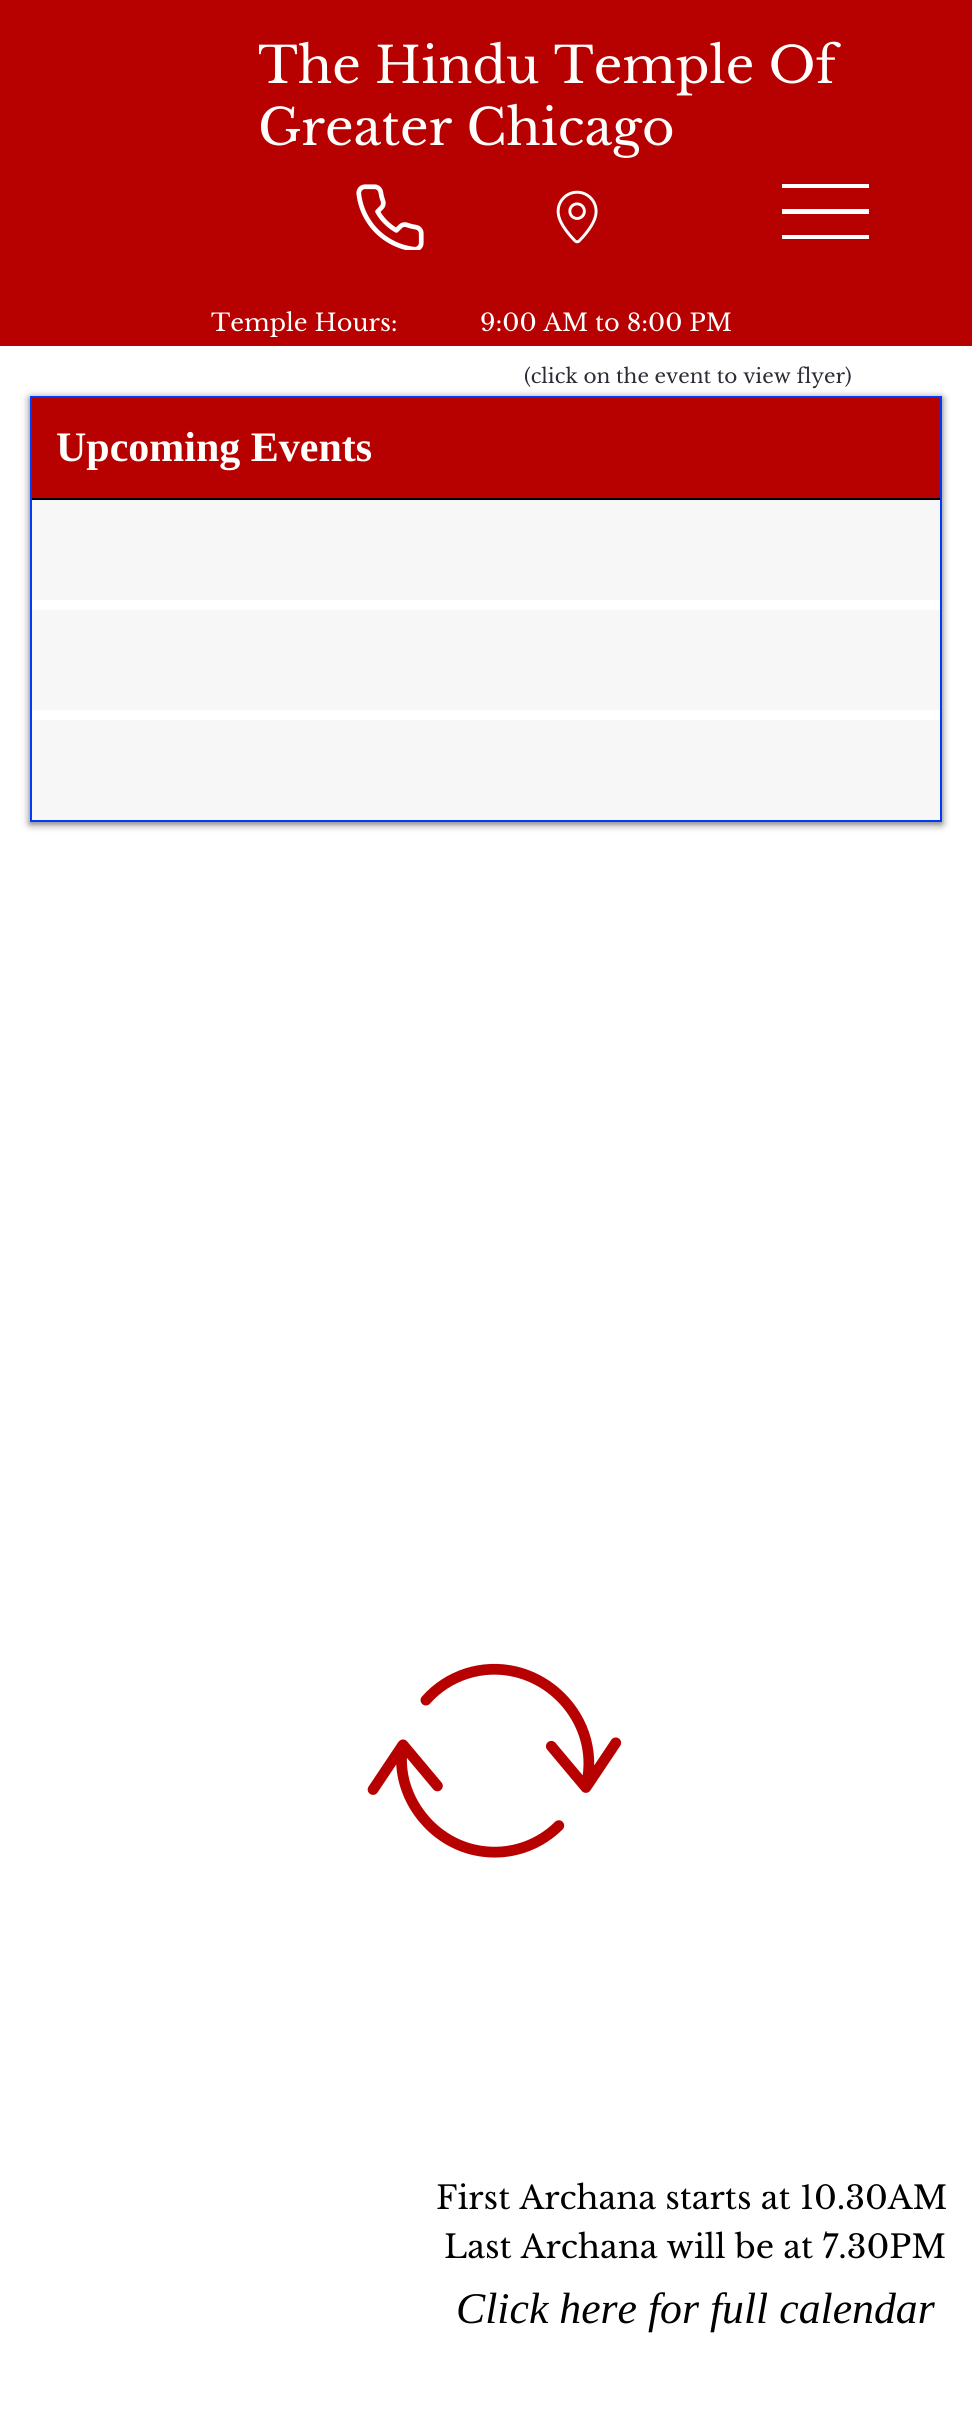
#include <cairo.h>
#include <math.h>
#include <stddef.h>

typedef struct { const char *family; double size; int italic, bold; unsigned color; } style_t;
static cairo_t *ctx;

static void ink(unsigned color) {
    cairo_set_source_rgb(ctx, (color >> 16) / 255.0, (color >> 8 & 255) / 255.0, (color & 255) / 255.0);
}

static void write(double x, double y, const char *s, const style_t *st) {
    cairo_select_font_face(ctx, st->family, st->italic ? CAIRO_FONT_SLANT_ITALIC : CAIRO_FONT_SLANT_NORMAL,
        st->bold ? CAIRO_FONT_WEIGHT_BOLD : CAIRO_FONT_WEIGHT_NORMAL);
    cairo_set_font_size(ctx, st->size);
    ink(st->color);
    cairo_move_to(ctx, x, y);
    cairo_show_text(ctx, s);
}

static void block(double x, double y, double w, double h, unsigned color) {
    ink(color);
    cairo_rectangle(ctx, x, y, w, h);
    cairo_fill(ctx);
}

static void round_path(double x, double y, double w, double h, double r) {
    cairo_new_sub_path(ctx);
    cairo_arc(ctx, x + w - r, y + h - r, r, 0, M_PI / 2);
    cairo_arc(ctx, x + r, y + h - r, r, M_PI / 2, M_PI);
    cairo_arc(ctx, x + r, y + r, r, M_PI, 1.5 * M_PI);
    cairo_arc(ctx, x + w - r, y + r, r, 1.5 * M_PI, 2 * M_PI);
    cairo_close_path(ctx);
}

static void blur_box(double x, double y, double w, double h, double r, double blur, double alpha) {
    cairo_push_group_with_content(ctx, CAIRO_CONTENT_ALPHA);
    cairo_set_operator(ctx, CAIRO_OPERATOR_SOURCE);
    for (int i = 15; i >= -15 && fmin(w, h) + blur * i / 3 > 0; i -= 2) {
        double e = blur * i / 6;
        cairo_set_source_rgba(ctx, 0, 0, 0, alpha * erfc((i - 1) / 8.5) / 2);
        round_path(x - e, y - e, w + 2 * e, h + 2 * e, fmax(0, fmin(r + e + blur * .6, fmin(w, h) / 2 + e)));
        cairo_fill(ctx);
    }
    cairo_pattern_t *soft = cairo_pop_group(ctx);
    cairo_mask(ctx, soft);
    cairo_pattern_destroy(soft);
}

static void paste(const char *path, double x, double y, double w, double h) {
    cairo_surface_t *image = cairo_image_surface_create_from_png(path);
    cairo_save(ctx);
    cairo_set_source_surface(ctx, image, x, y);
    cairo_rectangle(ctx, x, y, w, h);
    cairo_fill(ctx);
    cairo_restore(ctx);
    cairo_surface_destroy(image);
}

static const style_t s1 = {"Libre Baskerville", 49.8, 0, 0, 0xfffffe};
static const style_t s2 = {"Libre Baskerville", 24, 0, 0, 0xfffffe};
static const style_t s3 = {"Libre Baskerville", 20, 0, 0, 0x2f2b36};
static const style_t s4 = {"Liberation Serif", 42, 0, 1, 0xfffffe};
static const style_t s5 = {"Libre Baskerville", 32, 0, 0, 0x000000};
static const style_t s6 = {"Liberation Serif", 43.75, 1, 0, 0x000000};

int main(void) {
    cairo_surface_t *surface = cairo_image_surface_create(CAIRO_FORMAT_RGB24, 972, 2412);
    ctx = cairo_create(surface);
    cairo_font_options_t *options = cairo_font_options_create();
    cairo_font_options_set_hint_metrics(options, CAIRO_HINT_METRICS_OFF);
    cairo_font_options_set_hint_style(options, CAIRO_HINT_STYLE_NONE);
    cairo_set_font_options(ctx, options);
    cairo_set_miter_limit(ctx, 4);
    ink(0xffffff);
    cairo_paint(ctx);
    block(0, 0, 972, 346, 0xb70101);
    write(258, 83, "The Hindu Temple Of", &s1);
    write(258, 145, "Greater Chicago", &s1);
    paste("pic1.png", 356, 184, 68, 66);
    paste("pic2.png", 556, 190, 42, 54);
    block(782, 184, 87, 4, 0xffffff);
    block(782, 209, 87, 5, 0xffffff);
    block(782, 235, 87, 4, 0xffffff);
    write(211, 331, "Temple Hours:", &s2);
    write(480, 331, "9:00 AM to 8:00 PM", &s2);
    ink(0x000000);
    blur_box(30, 398, 912, 426, 0, 4, 0.6);
    write(524, 383, "(click on the event to view flyer)", &s3);
    cairo_rectangle(ctx, 31, 397, 910, 424);
    ink(0x0339f8);
    cairo_stroke(ctx);
    block(32, 398, 908, 100, 0xb70101);
    block(32, 498, 908, 2, 0x000000);
    write(56, 461, "Upcoming Events", &s4);
    block(32, 600, 908, 10, 0xffffff);
    block(32, 500, 908, 100, 0xf7f7f7);
    block(32, 710, 908, 10, 0xffffff);
    block(32, 610, 908, 100, 0xf7f7f7);
    block(32, 720, 908, 100, 0xf7f7f7);
    paste("pic3.png", 367, 1663, 255, 195);
    write(436, 2209, "First Archana starts at 10.30AM", &s5);
    write(444, 2258, "Last Archana will be at 7.30PM", &s5);
    write(456, 2323, "Click here for full calendar", &s6);
    cairo_surface_write_to_png(surface, "screenshot.png");
    cairo_font_options_destroy(options);
    cairo_destroy(ctx);
    cairo_surface_destroy(surface);
    return 0;
}
